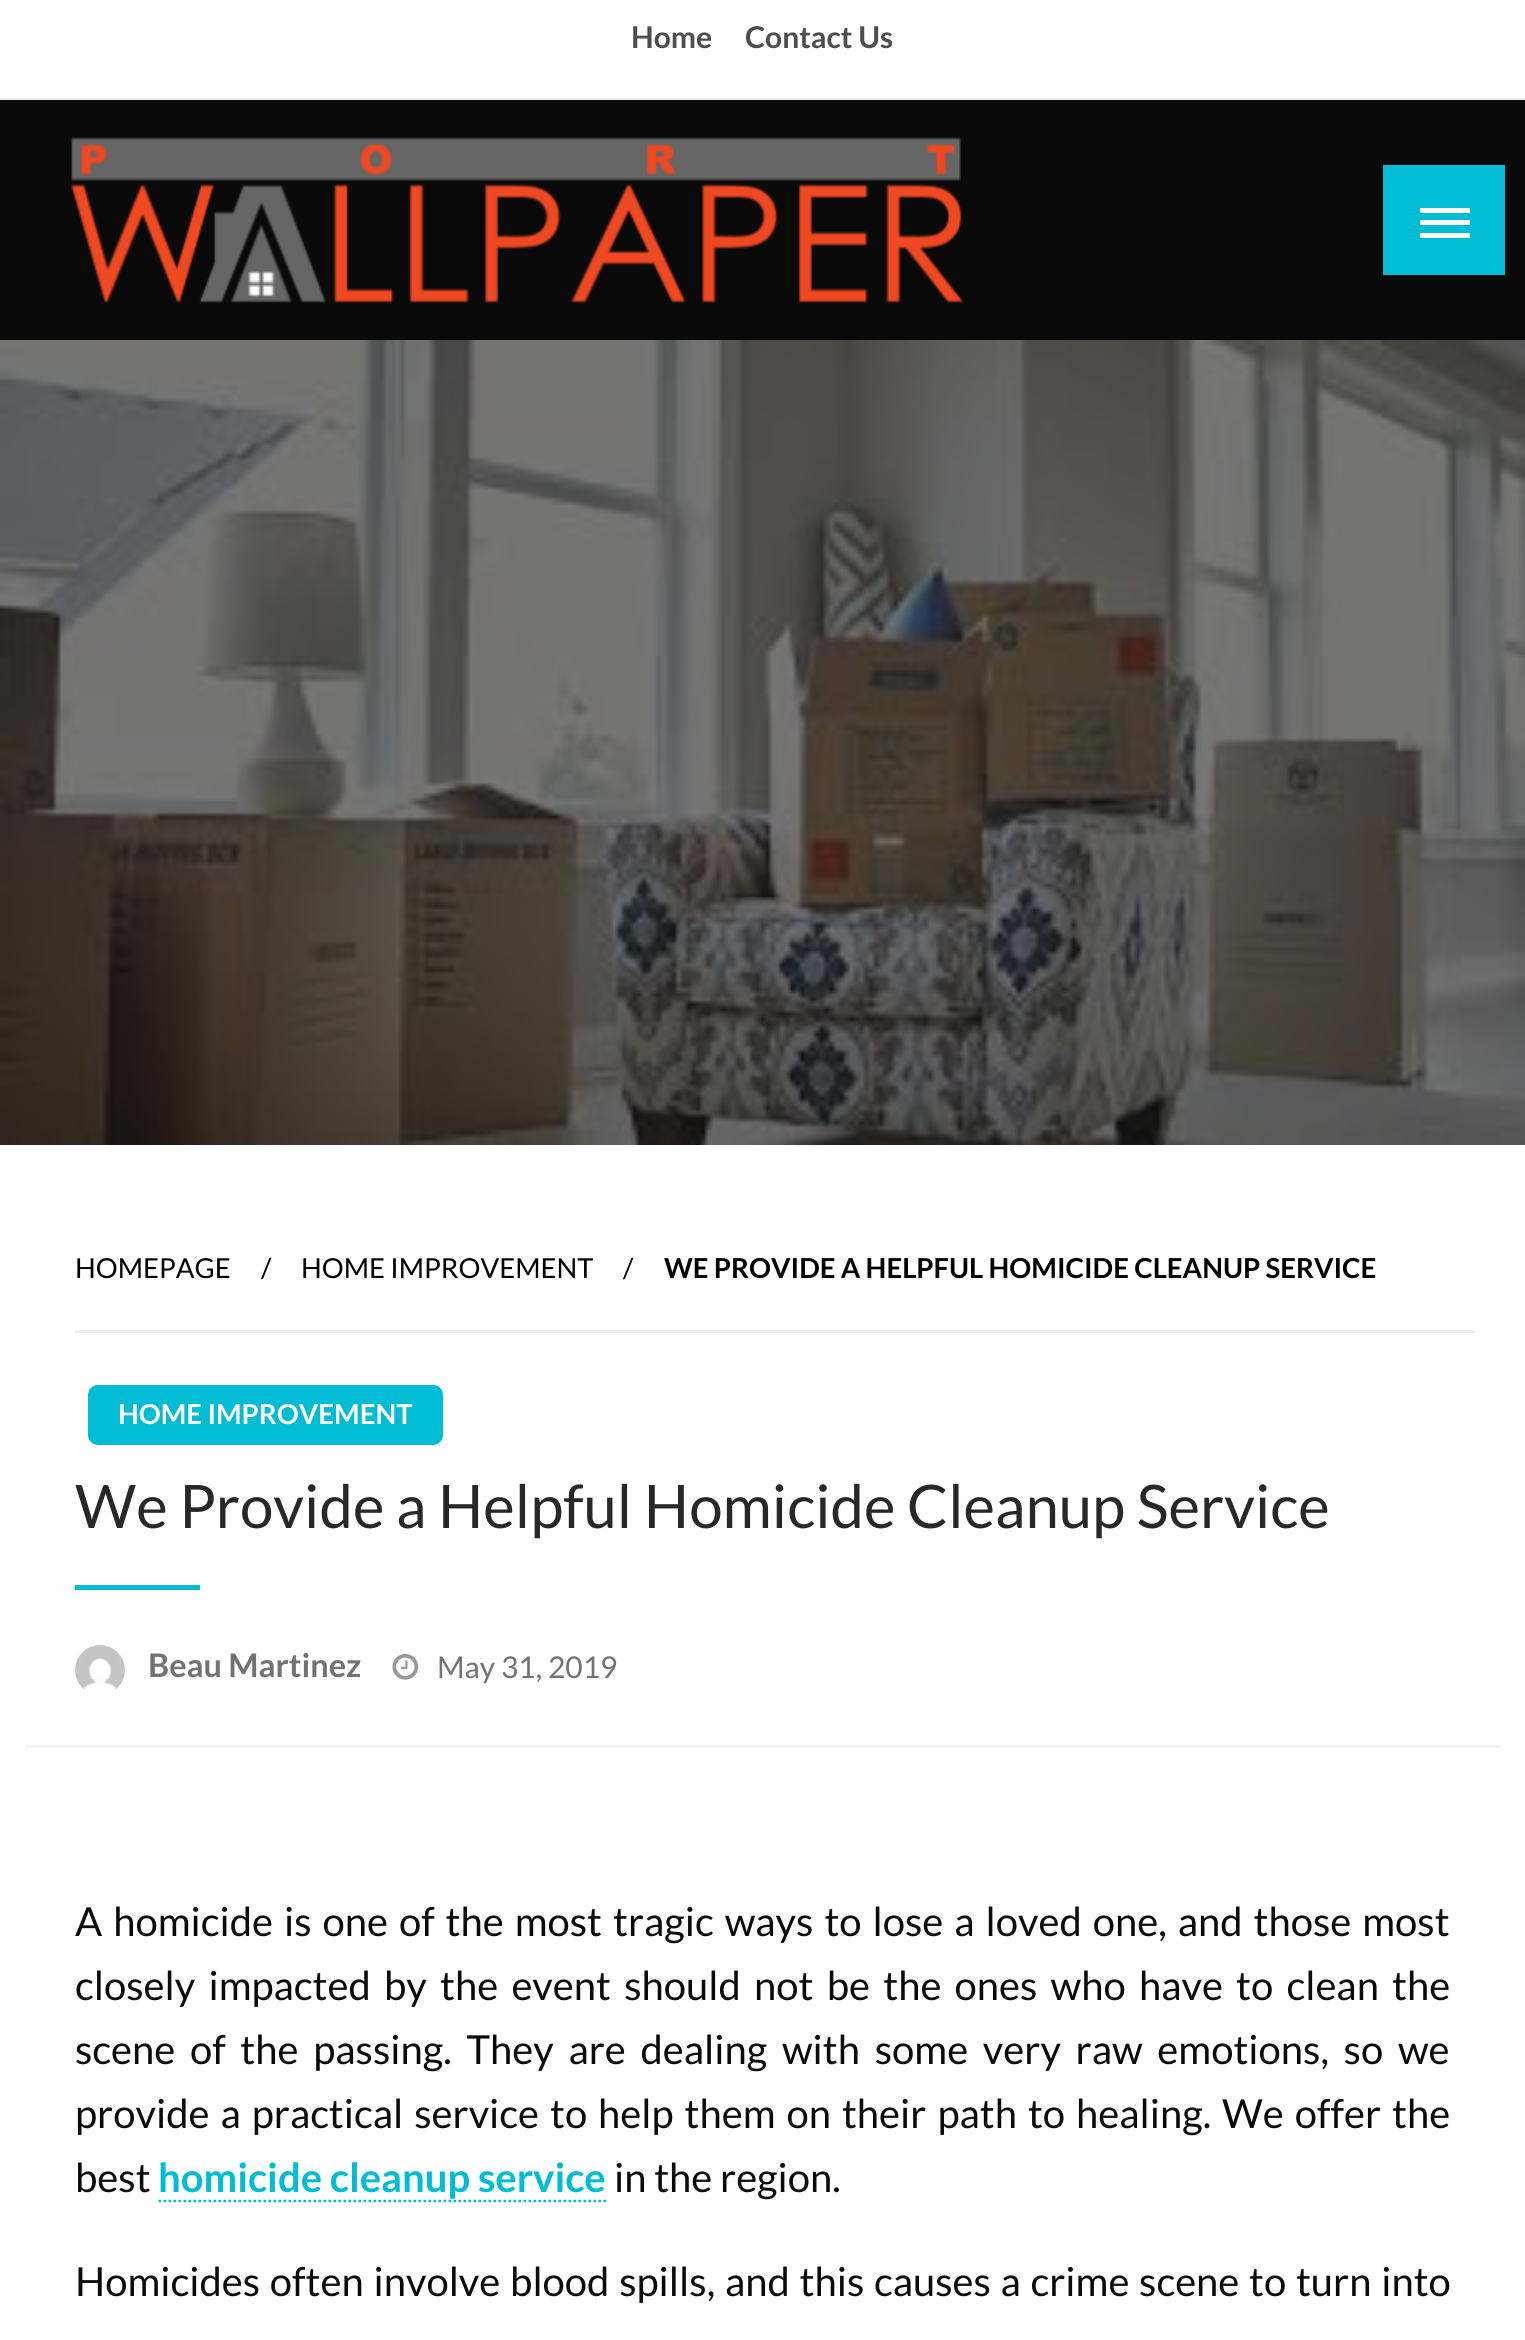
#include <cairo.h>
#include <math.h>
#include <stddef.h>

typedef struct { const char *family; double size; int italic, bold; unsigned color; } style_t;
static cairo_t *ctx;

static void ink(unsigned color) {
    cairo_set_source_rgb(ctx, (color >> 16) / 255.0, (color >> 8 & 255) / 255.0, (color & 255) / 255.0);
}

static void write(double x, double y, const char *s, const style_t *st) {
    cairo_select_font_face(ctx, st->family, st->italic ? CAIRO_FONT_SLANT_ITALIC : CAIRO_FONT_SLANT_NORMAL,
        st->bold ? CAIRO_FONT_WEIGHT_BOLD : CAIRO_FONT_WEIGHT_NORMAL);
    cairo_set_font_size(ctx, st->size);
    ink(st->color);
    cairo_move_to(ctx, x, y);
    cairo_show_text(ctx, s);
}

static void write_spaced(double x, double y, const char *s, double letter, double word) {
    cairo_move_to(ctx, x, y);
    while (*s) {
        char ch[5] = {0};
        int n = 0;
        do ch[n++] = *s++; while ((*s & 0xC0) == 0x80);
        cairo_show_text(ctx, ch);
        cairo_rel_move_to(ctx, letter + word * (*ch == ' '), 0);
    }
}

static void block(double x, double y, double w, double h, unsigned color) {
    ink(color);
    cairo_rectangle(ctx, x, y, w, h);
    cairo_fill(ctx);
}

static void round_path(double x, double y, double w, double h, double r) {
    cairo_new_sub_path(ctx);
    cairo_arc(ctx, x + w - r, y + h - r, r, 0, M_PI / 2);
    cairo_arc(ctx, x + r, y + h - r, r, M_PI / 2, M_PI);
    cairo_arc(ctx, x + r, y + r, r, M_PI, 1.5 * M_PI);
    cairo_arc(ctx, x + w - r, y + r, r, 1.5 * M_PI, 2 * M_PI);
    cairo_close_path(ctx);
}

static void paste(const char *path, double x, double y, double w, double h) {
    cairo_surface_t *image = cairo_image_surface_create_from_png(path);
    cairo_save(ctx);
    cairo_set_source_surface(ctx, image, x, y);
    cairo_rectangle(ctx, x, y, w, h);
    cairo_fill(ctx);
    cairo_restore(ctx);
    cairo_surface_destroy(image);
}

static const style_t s1 = {"Lato", 30, 0, 1, 0x4d4d4d};
static const style_t s2 = {"Lato", 27.5, 0, 0, 0x000000};
static const style_t s3 = {"Lato", 27.5, 0, 1, 0x000000};
static const style_t s4 = {"Lato", 27.5, 0, 1, 0xffffff};
static const style_t s5 = {"Lato", 60, 0, 0, 0x282828};
static const style_t s6 = {"Lato", 32.5, 0, 1, 0x737272};
static const style_t s7 = {"Lato", 30, 0, 0, 0x737272};
static const style_t s8 = {"Lato", 40, 0, 0, 0x0a0a0a};
static const style_t s9 = {"Lato", 40, 0, 1, 0x00bcd4};

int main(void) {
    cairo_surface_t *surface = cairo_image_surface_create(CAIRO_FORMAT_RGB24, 1525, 2340);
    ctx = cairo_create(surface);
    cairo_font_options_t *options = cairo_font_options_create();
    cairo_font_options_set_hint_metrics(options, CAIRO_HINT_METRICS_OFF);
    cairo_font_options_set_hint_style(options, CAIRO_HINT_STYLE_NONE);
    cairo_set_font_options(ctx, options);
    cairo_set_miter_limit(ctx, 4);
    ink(0xffffff);
    cairo_paint(ctx);
    block(0, 98, 1525, 2, 0xecede7);
    write(631, 48, "Home", &s1);
    write(745, 48, "Contact Us", &s1);
    block(0, 100, 1525, 240, 0x0a0a0a);
    paste("pic1.png", 71, 137, 892, 166);
    block(1383, 165, 122, 110, 0x00bcd4);
    block(1420, 208, 50, 5, 0xffffff);
    block(1420, 220, 50, 5, 0xffffff);
    block(1420, 233, 50, 5, 0xffffff);
    paste("pic2.png", 0, 340, 1525, 805);
    block(25, 1745, 1475, 3, 0xf4f4f4);
    block(75, 1330, 1400, 3, 0xefefef);
    write(75, 1278, "HOMEPAGE", &s2);
    write(261, 1278, "/", &s2);
    write(301, 1278, "HOME IMPROVEMENT", &s2);
    write(623, 1278, "/", &s2);
    write(664, 1278, "WE PROVIDE A HELPFUL HOMICIDE CLEANUP SERVICE", &s3);
    ink(0x00bcd4);
    round_path(88, 1385, 355, 60, 10);
    cairo_fill(ctx);
    write(118, 1424, "HOME IMPROVEMENT", &s4);
    write(75, 1528, "We Provide a Helpful Homicide Cleanup Service", &s5);
    block(75, 1585, 125, 5, 0x00bcd4);
    paste("pic3.png", 75, 1645, 50, 45);
    write(148, 1677, "Beau Martinez", &s6);
    paste("pic4.png", 392, 1653, 27, 27);
    write(437, 1678, "May 31, 2019", &s7);
    cairo_set_font_size(ctx, 40);
    ink(0x0a0a0a);
    write_spaced(75, 1936, "A homicide is one of the most tragic ways to lose a loved one, and those most", 0, 3.25);
    write_spaced(75, 2000, "closely impacted by the event should not be the ones who have to clean the", 0, 5.5);
    write_spaced(75, 2064, "scene of the passing. They are dealing with some very raw emotions, so we", 0, 7);
    write_spaced(75, 2128, "provide a practical service to help them on their path to healing. We offer the", 0, 3.25);
    write(75, 2192, "best", &s8);
    write(158, 2192, "homicide cleanup service", &s9);
    cairo_new_path(ctx);
    cairo_move_to(ctx, 158.5, 2201);
    cairo_line_to(ctx, 606, 2201);
    cairo_set_line_width(ctx, 2.5);
    cairo_set_dash(ctx, (double[]){2.5, 2.5}, 2, 0);
    cairo_stroke(ctx);
    write(614, 2192, "in the region.", &s8);
    write_spaced(75, 2296, "Homicides often involve blood spills, and this causes a crime scene to turn into", 0, 2);
    cairo_surface_write_to_png(surface, "screenshot.png");
    cairo_font_options_destroy(options);
    cairo_destroy(ctx);
    cairo_surface_destroy(surface);
    return 0;
}
